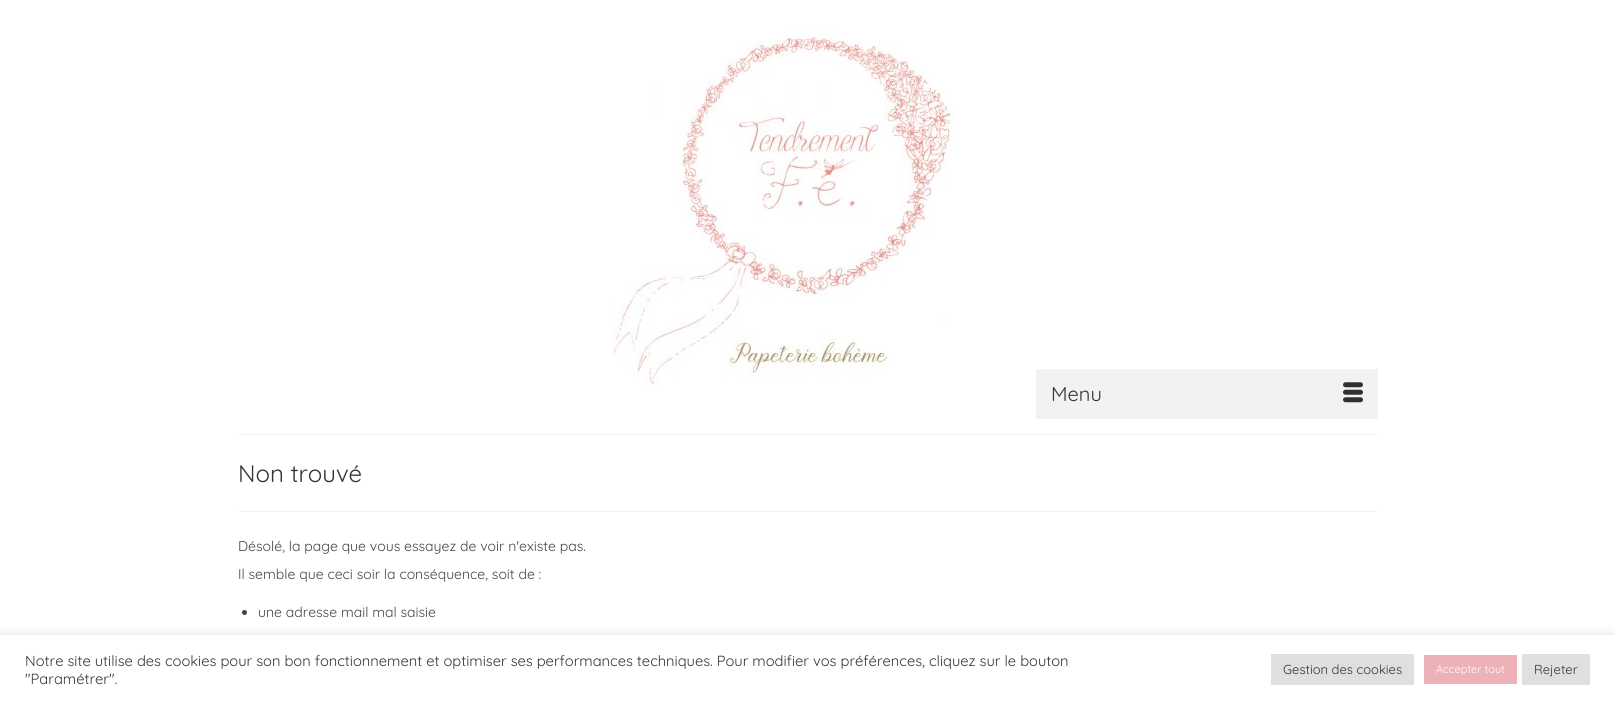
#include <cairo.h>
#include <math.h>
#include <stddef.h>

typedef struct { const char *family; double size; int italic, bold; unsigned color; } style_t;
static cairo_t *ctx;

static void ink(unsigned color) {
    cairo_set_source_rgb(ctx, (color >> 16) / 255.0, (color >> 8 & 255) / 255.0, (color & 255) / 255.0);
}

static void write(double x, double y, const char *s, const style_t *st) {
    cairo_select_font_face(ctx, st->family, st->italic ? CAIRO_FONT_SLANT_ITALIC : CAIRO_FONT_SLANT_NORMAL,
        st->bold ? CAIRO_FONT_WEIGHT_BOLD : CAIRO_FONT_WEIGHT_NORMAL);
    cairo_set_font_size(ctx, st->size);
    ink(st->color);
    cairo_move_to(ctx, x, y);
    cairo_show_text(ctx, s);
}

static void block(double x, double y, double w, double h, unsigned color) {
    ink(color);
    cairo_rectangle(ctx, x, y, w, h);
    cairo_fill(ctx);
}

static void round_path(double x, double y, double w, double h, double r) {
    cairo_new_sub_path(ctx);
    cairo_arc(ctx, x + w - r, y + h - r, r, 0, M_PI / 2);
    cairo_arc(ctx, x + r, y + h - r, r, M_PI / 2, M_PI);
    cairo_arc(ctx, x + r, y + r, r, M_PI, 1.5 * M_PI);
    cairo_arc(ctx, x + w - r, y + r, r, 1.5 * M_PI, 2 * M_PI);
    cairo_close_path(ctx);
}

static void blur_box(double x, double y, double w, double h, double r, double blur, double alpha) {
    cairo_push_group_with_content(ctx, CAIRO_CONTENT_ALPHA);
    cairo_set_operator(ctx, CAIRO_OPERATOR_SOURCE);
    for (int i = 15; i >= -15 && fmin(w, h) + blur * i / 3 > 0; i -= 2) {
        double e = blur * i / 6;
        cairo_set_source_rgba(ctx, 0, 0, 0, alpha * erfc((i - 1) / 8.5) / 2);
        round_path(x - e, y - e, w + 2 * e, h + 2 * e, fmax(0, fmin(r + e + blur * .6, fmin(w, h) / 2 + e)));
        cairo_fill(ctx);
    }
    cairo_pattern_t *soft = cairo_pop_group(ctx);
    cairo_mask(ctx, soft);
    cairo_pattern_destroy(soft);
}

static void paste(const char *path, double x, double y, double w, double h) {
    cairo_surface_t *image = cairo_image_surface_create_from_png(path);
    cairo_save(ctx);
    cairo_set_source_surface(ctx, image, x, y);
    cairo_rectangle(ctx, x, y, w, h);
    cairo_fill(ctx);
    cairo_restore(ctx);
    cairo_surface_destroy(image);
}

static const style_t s1 = {"Quicksand", 20, 0, 0, 0x333333};
static const style_t s2 = {"Quicksand", 24, 0, 0, 0x333333};
static const style_t s3 = {"Quicksand", 14, 0, 0, 0x444444};
static const style_t s4 = {"Quicksand", 14.67, 0, 0, 0x333333};
static const style_t s5 = {"Quicksand", 13, 0, 0, 0x333333};
static const style_t s6 = {"Quicksand", 11, 0, 0, 0xffffff};

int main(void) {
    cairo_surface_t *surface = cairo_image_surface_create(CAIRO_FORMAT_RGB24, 1615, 704);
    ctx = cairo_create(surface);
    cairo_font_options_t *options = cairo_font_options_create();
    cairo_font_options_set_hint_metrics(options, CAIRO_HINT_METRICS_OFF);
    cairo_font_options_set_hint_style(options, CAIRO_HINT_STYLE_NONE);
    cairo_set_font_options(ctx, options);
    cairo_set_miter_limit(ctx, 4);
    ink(0xffffff);
    cairo_paint(ctx);
    paste("pic1.png", 612, 25, 344, 360);
    block(1036, 369, 342, 50, 0xf2f2f2);
    write(1051, 401, "Menu", &s1);
    paste("pic2.png", 1343, 382, 20, 21);
    block(238, 434, 1140, 1, 0xf2f2f2);
    block(238, 511, 1140, 1, 0xf2f2f2);
    write(238, 482, "Non trouvé", &s2);
    write(238, 551, "Désolé, la page que vous essayez de voir n'existe pas.", &s3);
    write(238, 579, "Il semble que ceci soir la conséquence, soit de :", &s3);
    cairo_new_path(ctx);
    cairo_arc(ctx, 244.5, 612.5, 2.5, 0, 2 * M_PI);
    cairo_fill(ctx);
    write(258, 617, "une adresse mail mal saisie", &s3);
    ink(0xacabab);
    blur_box(0, 634, 1615, 69, 0, 5, 0.3);
    block(0, 635, 1615, 69, 0xffffff);
    write(25, 666, "Notre site utilise des cookies pour son bon fonctionnement et optimiser ses performances techniques. Pour modifier vos préférences, cliquez sur le bouton", &s4);
    write(25, 684, "\"Paramétrer\".", &s4);
    block(1271, 654, 143, 31, 0xdedfe0);
    write(1283, 674, "Gestion des cookies", &s5);
    block(1424, 655, 93, 29, 0xecb2b7);
    write(1436, 673, "Accepter tout", &s6);
    block(1522, 654, 68, 31, 0xdedfe0);
    write(1534, 674, "Rejeter", &s5);
    cairo_surface_write_to_png(surface, "screenshot.png");
    cairo_font_options_destroy(options);
    cairo_destroy(ctx);
    cairo_surface_destroy(surface);
    return 0;
}
